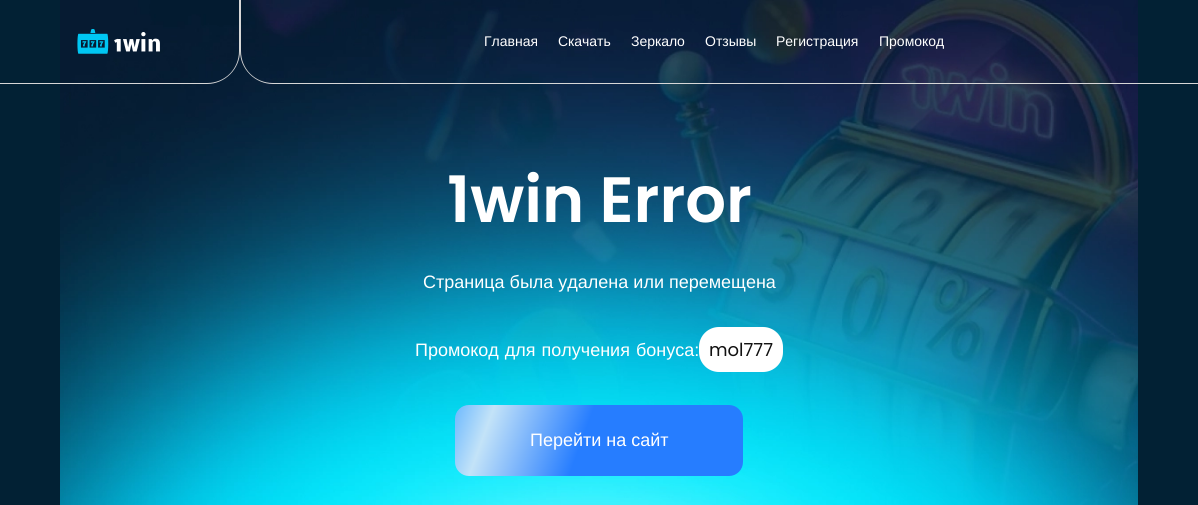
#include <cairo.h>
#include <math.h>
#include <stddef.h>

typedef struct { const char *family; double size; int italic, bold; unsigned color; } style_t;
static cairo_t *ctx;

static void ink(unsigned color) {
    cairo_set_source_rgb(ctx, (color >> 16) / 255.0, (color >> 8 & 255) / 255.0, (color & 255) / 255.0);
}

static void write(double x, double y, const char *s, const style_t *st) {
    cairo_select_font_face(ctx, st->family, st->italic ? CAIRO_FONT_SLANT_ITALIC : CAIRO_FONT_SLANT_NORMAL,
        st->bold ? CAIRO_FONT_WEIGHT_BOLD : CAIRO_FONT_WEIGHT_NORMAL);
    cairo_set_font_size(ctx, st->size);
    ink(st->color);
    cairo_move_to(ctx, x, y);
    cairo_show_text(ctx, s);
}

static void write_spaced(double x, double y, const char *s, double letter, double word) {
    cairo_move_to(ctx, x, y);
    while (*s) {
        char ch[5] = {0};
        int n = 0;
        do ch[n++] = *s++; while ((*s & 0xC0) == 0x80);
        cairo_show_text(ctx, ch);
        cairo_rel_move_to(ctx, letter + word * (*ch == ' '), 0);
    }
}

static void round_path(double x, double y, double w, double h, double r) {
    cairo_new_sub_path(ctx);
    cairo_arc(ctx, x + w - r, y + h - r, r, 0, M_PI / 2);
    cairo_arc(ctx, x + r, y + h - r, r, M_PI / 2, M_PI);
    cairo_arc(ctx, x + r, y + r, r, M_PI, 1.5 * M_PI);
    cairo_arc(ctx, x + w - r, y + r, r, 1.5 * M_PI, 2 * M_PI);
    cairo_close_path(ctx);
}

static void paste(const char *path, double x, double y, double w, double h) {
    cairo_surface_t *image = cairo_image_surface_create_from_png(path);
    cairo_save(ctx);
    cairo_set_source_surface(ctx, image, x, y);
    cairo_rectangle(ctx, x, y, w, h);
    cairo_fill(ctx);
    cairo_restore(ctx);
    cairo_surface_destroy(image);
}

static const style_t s1 = {"Liberation Sans", 14, 0, 0, 0xffffff};
static const style_t s2 = {"Poppins SemiBold", 64, 0, 0, 0xffffff};
static const style_t s3 = {"Liberation Sans", 18, 0, 0, 0xffffff};
static const style_t s4 = {"Poppins", 18, 0, 0, 0x111111};

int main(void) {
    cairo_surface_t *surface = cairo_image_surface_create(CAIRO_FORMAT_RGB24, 1198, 505);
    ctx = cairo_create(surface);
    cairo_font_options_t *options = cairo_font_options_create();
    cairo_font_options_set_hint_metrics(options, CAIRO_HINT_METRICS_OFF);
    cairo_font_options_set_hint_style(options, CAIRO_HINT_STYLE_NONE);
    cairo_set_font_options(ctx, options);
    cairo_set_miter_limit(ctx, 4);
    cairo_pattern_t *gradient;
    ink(0x022134);
    cairo_paint(ctx);
    paste("pic2.png", 60, 0, 1078, 505);
    ink(0xd7d7d7);
    cairo_set_fill_rule(ctx, CAIRO_FILL_RULE_EVEN_ODD);
    cairo_new_path(ctx);
    cairo_move_to(ctx, 0, 0);
    cairo_line_to(ctx, 240, 0);
    cairo_line_to(ctx, 240, 51);
    cairo_curve_to(ctx, 240, 69, 225, 84, 207, 84);
    cairo_line_to(ctx, 0, 84);
    cairo_close_path(ctx);
    cairo_move_to(ctx, 0, 0);
    cairo_line_to(ctx, 239, 0);
    cairo_line_to(ctx, 239, 51);
    cairo_curve_to(ctx, 239, 69, 225, 83, 207, 83);
    cairo_line_to(ctx, 0, 83);
    cairo_close_path(ctx);
    cairo_fill(ctx);
    paste("pic1.png", 77, 29, 83, 25);
    cairo_new_path(ctx);
    cairo_move_to(ctx, 240, 0);
    cairo_line_to(ctx, 1198, 0);
    cairo_line_to(ctx, 1198, 84);
    cairo_line_to(ctx, 273, 84);
    cairo_curve_to(ctx, 255, 84, 240, 69, 240, 51);
    cairo_close_path(ctx);
    cairo_move_to(ctx, 241, 0);
    cairo_line_to(ctx, 1198, 0);
    cairo_line_to(ctx, 1198, 83);
    cairo_line_to(ctx, 273, 83);
    cairo_curve_to(ctx, 255, 83, 241, 69, 241, 51);
    cairo_close_path(ctx);
    cairo_fill(ctx);
    write(484, 46, "Главная", &s1);
    write(558, 46, "Скачать", &s1);
    write(631, 46, "Зеркало", &s1);
    write(705, 46, "Отзывы", &s1);
    write(776, 46, "Регистрация", &s1);
    write(879, 46, "Промокод", &s1);
    write(447, 222, "1win Error", &s2);
    write(423, 288, "Страница была удалена или перемещена", &s3);
    write_spaced(415, 356, "Промокод для получения бонуса:", 0, 1);
    round_path(699, 327, 84, 45, 20);
    cairo_fill(ctx);
    write(709, 356, "mol777", &s4);
    gradient = cairo_pattern_create_linear(453, 387, 738, 491);
    cairo_pattern_add_color_stop_rgba(gradient, 0, 0.357, 0.69, 1, 1);
    cairo_pattern_add_color_stop_rgba(gradient, 0.15, 0.765, 0.89, 0.973, 1);
    cairo_pattern_add_color_stop_rgba(gradient, 0.46, 0.149, 0.49, 1, 1);
    cairo_set_source(ctx, gradient);
    cairo_pattern_destroy(gradient);
    round_path(455, 405, 288, 71, 14);
    cairo_fill(ctx);
    write(530, 446, "Перейти на сайт", &s3);
    cairo_surface_write_to_png(surface, "screenshot.png");
    cairo_font_options_destroy(options);
    cairo_destroy(ctx);
    cairo_surface_destroy(surface);
    return 0;
}
